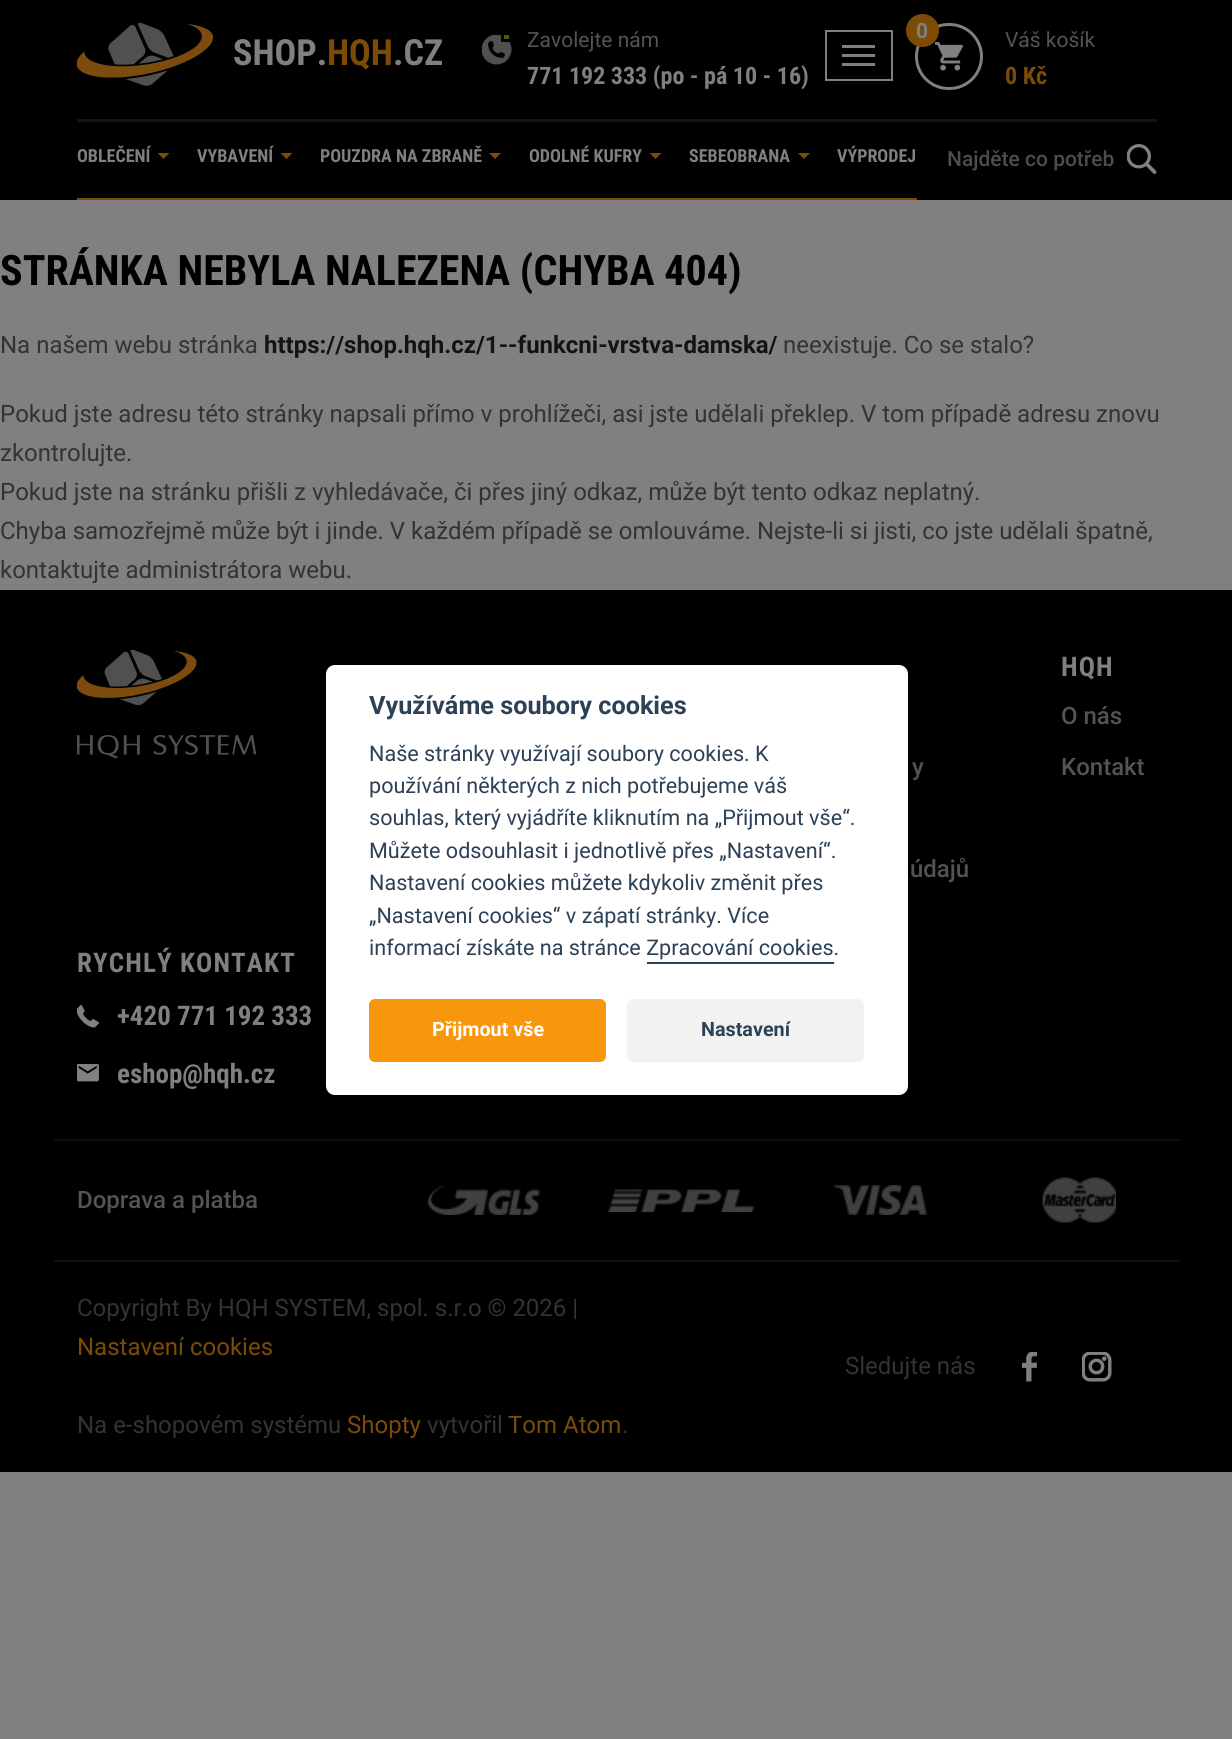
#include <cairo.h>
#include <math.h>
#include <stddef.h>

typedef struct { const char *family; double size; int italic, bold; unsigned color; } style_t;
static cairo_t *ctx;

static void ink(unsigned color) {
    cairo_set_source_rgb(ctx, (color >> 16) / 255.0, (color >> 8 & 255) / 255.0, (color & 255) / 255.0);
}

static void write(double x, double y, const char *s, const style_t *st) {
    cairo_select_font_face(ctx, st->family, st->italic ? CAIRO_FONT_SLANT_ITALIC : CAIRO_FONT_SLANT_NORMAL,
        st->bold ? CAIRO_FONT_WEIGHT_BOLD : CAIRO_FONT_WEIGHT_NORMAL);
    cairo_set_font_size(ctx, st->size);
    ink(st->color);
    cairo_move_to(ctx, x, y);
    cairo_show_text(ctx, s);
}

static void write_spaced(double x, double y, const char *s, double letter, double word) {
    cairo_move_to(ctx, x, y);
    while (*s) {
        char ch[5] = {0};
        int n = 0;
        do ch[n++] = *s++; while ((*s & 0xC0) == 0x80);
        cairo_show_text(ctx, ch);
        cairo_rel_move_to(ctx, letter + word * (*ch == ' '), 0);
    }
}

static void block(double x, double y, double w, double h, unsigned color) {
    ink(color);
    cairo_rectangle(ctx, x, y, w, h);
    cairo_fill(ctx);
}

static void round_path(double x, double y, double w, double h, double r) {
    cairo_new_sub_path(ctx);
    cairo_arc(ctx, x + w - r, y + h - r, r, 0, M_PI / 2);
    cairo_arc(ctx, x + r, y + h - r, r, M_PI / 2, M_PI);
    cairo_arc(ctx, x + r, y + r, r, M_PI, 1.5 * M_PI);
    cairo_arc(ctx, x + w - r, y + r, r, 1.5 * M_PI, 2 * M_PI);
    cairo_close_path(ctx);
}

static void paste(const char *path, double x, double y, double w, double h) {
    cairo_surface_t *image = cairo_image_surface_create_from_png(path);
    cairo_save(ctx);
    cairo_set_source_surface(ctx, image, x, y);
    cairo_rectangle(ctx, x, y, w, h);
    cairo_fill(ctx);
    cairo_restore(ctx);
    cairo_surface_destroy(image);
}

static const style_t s1 = {"Roboto Condensed", 36, 0, 1, 0x808080};
static const style_t s2 = {"Roboto Condensed", 36, 0, 1, 0x7c4c07};
static const style_t s3 = {"Roboto", 21, 0, 0, 0x545454};
static const style_t s4 = {"Roboto Condensed", 24, 0, 1, 0x808080};
static const style_t s5 = {"Roboto", 21, 0, 1, 0x808080};
static const style_t s6 = {"Roboto Condensed", 24, 0, 1, 0x7c4c07};
static const style_t s7 = {"Roboto Condensed", 18, 0, 1, 0x808080};
static const style_t s8 = {"Roboto Medium", 21, 0, 0, 0x4d4d4d};
static const style_t s9 = {"Roboto Condensed", 42, 0, 1, 0x000000};
static const style_t s10 = {"Roboto", 24, 0, 0, 0x333333};
static const style_t s11 = {"Roboto", 24, 0, 1, 0x121316};
static const style_t s12 = {"Roboto Medium", 24, 0, 0, 0x545454};
static const style_t s13 = {"Roboto Condensed", 27, 0, 1, 0x808080};
static const style_t s14 = {"Roboto", 24, 0, 0, 0x7c4c07};
static const style_t s15 = {"Roboto", 25.25, 0, 1, 0x2d4156};
static const style_t s16 = {"Roboto", 21.6, 0, 0, 0x2d4156};
static const style_t s17 = {"Roboto", 19.75, 0, 1, 0xffffff};
static const style_t s18 = {"Roboto", 19.75, 0, 1, 0x2d4156};

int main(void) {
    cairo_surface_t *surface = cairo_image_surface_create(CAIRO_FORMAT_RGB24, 1232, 1739);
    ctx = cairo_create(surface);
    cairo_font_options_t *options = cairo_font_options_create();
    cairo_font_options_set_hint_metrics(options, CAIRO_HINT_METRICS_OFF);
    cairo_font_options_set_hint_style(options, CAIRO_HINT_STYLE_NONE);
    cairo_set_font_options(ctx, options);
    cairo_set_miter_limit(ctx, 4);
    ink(0x808080);
    cairo_paint(ctx);
    block(0, 0, 1232, 200, 0x000000);
    paste("pic1.png", 77, 23, 136, 63);
    write(233, 65, "SHOP.", &s1);
    write(327, 65, "HQH", &s2);
    write(393, 65, ".CZ", &s1);
    paste("pic2.png", 482, 35, 30, 30);
    ink(0x4d5e00);
    cairo_rectangle(ctx, 502.5, 33.5, 8, 7);
    cairo_fill_preserve(ctx);
    ink(0x000000);
    cairo_set_line_width(ctx, 3);
    cairo_stroke(ctx);
    write(527, 47, "Zavolejte nám", &s3);
    write(527, 84, "771 192 333 (po - pá 10 - 16)", &s4);
    cairo_rectangle(ctx, 826, 31, 66, 49);
    cairo_set_line_width(ctx, 2);
    cairo_stroke(ctx);
    block(842, 45, 33, 3, 0x808080);
    block(842, 54, 33, 3, 0x808080);
    block(842, 63, 33, 3, 0x808080);
    paste("pic3.png", 935, 42, 28, 29);
    round_path(916.5, 24.5, 65, 64, 32);
    cairo_set_line_width(ctx, 3);
    cairo_stroke(ctx);
    ink(0x7c4c07);
    cairo_arc(ctx, 922.5, 30.5, 16.5, 0, 2 * M_PI);
    cairo_fill(ctx);
    write(916, 38, "0", &s5);
    write(1005, 47, "Váš košík", &s3);
    write(1005, 84, "0 Kč", &s6);
    block(77, 119, 1080, 3, 0x141414);
    block(77, 198, 840, 2, 0x7c4c07);
    write(77, 162, "OBLEČENÍ", &s7);
    ink(0x7c4c07);
    cairo_new_path(ctx);
    cairo_move_to(ctx, 157.5, 153);
    cairo_line_to(ctx, 169.5, 153);
    cairo_line_to(ctx, 163.5, 159);
    cairo_close_path(ctx);
    cairo_fill(ctx);
    write(197, 162, "VYBAVENÍ", &s7);
    ink(0x7c4c07);
    cairo_new_path(ctx);
    cairo_move_to(ctx, 280.5, 153);
    cairo_line_to(ctx, 292.5, 153);
    cairo_line_to(ctx, 286.5, 159);
    cairo_close_path(ctx);
    cairo_fill(ctx);
    write(320, 162, "POUZDRA NA ZBRANĚ", &s7);
    ink(0x7c4c07);
    cairo_new_path(ctx);
    cairo_move_to(ctx, 489, 153);
    cairo_line_to(ctx, 501, 153);
    cairo_line_to(ctx, 495, 159);
    cairo_close_path(ctx);
    cairo_fill(ctx);
    write(529, 162, "ODOLNÉ KUFRY", &s7);
    ink(0x7c4c07);
    cairo_new_path(ctx);
    cairo_move_to(ctx, 649.5, 153);
    cairo_line_to(ctx, 661.5, 153);
    cairo_line_to(ctx, 655.5, 159);
    cairo_close_path(ctx);
    cairo_fill(ctx);
    write(689, 162, "SEBEOBRANA", &s7);
    ink(0x7c4c07);
    cairo_new_path(ctx);
    cairo_move_to(ctx, 798, 153);
    cairo_line_to(ctx, 810, 153);
    cairo_line_to(ctx, 804, 159);
    cairo_close_path(ctx);
    cairo_fill(ctx);
    write(837, 162, "VÝPRODEJ", &s7);
    write(947, 166, "Najděte co potřeb", &s8);
    paste("pic4.png", 1127, 144, 30, 30);
    write(0, 285, "STRÁNKA NEBYLA NALEZENA (CHYBA 404)", &s9);
    write(0, 353, "Na našem webu stránka", &s10);
    write(264, 353, "https://shop.hqh.cz/1--funkcni-vrstva-damska/", &s11);
    write(783, 353, "neexistuje. Co se stalo?", &s10);
    write(0, 422, "Pokud jste adresu této stránky napsali přímo v prohlížeči, asi jste udělali překlep. V tom případě adresu znovu", &s10);
    write(0, 461, "zkontrolujte.", &s10);
    write(0, 500, "Pokud jste na stránku přišli z vyhledávače, či přes jiný odkaz, může být tento odkaz neplatný.", &s10);
    write(0, 539, "Chyba samozřejmě může být i jinde. V každém případě se omlouváme. Nejste-li si jisti, co jste udělali špatně,", &s10);
    write(0, 578, "kontaktujte administrátora webu.", &s10);
    block(0, 590, 1232, 882, 0x000000);
    paste("pic5.png", 77, 650, 120, 55);
    paste("pic6.png", 77, 735, 180, 24);
    cairo_select_font_face(ctx, "Roboto Condensed", CAIRO_FONT_SLANT_NORMAL, CAIRO_FONT_WEIGHT_BOLD);
    cairo_set_font_size(ctx, 27);
    ink(0x808080);
    write_spaced(1061, 676, "HQH", 1.1, 0);
    write(1061, 724, "O nás", &s12);
    write(1061, 775, "Kontakt", &s12);
    write(912, 775, "y", &s12);
    write(910, 877, "údajů", &s12);
    cairo_select_font_face(ctx, "Roboto Condensed", CAIRO_FONT_SLANT_NORMAL, CAIRO_FONT_WEIGHT_BOLD);
    cairo_set_font_size(ctx, 27);
    ink(0x808080);
    write_spaced(77, 972, "RYCHLÝ KONTAKT", 1.1, 0);
    paste("pic7.png", 77, 1005, 22, 23);
    write(117, 1025, "+420 771 192 333", &s13);
    paste("pic8.png", 77, 1064, 22, 18);
    write(117, 1083, "eshop@hqh.cz", &s13);
    block(54, 1139, 1125, 2, 0x0f0f0f);
    block(54, 1260, 1125, 2, 0x0f0f0f);
    write(77, 1208, "Doprava a platba", &s12);
    paste("pic9.png", 427, 1185, 113, 30);
    paste("pic10.png", 607, 1189, 151, 23);
    paste("pic11.png", 834, 1185, 93, 30);
    paste("pic12.png", 1042, 1177, 74, 46);
    write(77, 1316, "Copyright By HQH SYSTEM, spol. s.r.o © 2026 |", &s10);
    write(77, 1355, "Nastavení cookies", &s14);
    write(77, 1433, "Na e-shopovém systému", &s10);
    write(347, 1433, "Shopty", &s14);
    write(427, 1433, "vytvořil", &s10);
    write(508, 1433, "Tom Atom", &s14);
    write(622, 1433, ".", &s10);
    write(845, 1374, "Sledujte nás", &s10);
    paste("pic13.png", 1022, 1352, 15, 30);
    paste("pic14.png", 1082, 1352, 30, 30);
    ink(0xffffff);
    round_path(326, 665, 582, 430, 9);
    cairo_fill(ctx);
    write(369, 714, "Využíváme soubory cookies", &s15);
    write(369, 761, "Naše stránky využívají soubory cookies. K", &s16);
    write(369, 793, "používání některých z nich potřebujeme váš", &s16);
    write(369, 825, "souhlas, který vyjádříte kliknutím na „Přijmout vše“.", &s16);
    write(369, 858, "Můžete odsouhlasit i jednotlivě přes „Nastavení“.", &s16);
    write(369, 890, "Nastavení cookies můžete kdykoliv změnit přes", &s16);
    write(369, 923, "„Nastavení cookies“ v zápatí stránky. Více", &s16);
    write(369, 955, "informací získáte na stránce Zpracování cookies.", &s16);
    block(647, 962, 187, 2, 0x2d4156);
    ink(0xf8970d);
    round_path(369, 999, 237, 63, 6);
    cairo_fill(ctx);
    write(432, 1036, "Přijmout vše", &s17);
    ink(0xf2f2f2);
    round_path(627, 999, 237, 63, 6);
    cairo_fill(ctx);
    write(701, 1036, "Nastavení", &s18);
    cairo_surface_write_to_png(surface, "screenshot.png");
    cairo_font_options_destroy(options);
    cairo_destroy(ctx);
    cairo_surface_destroy(surface);
    return 0;
}
